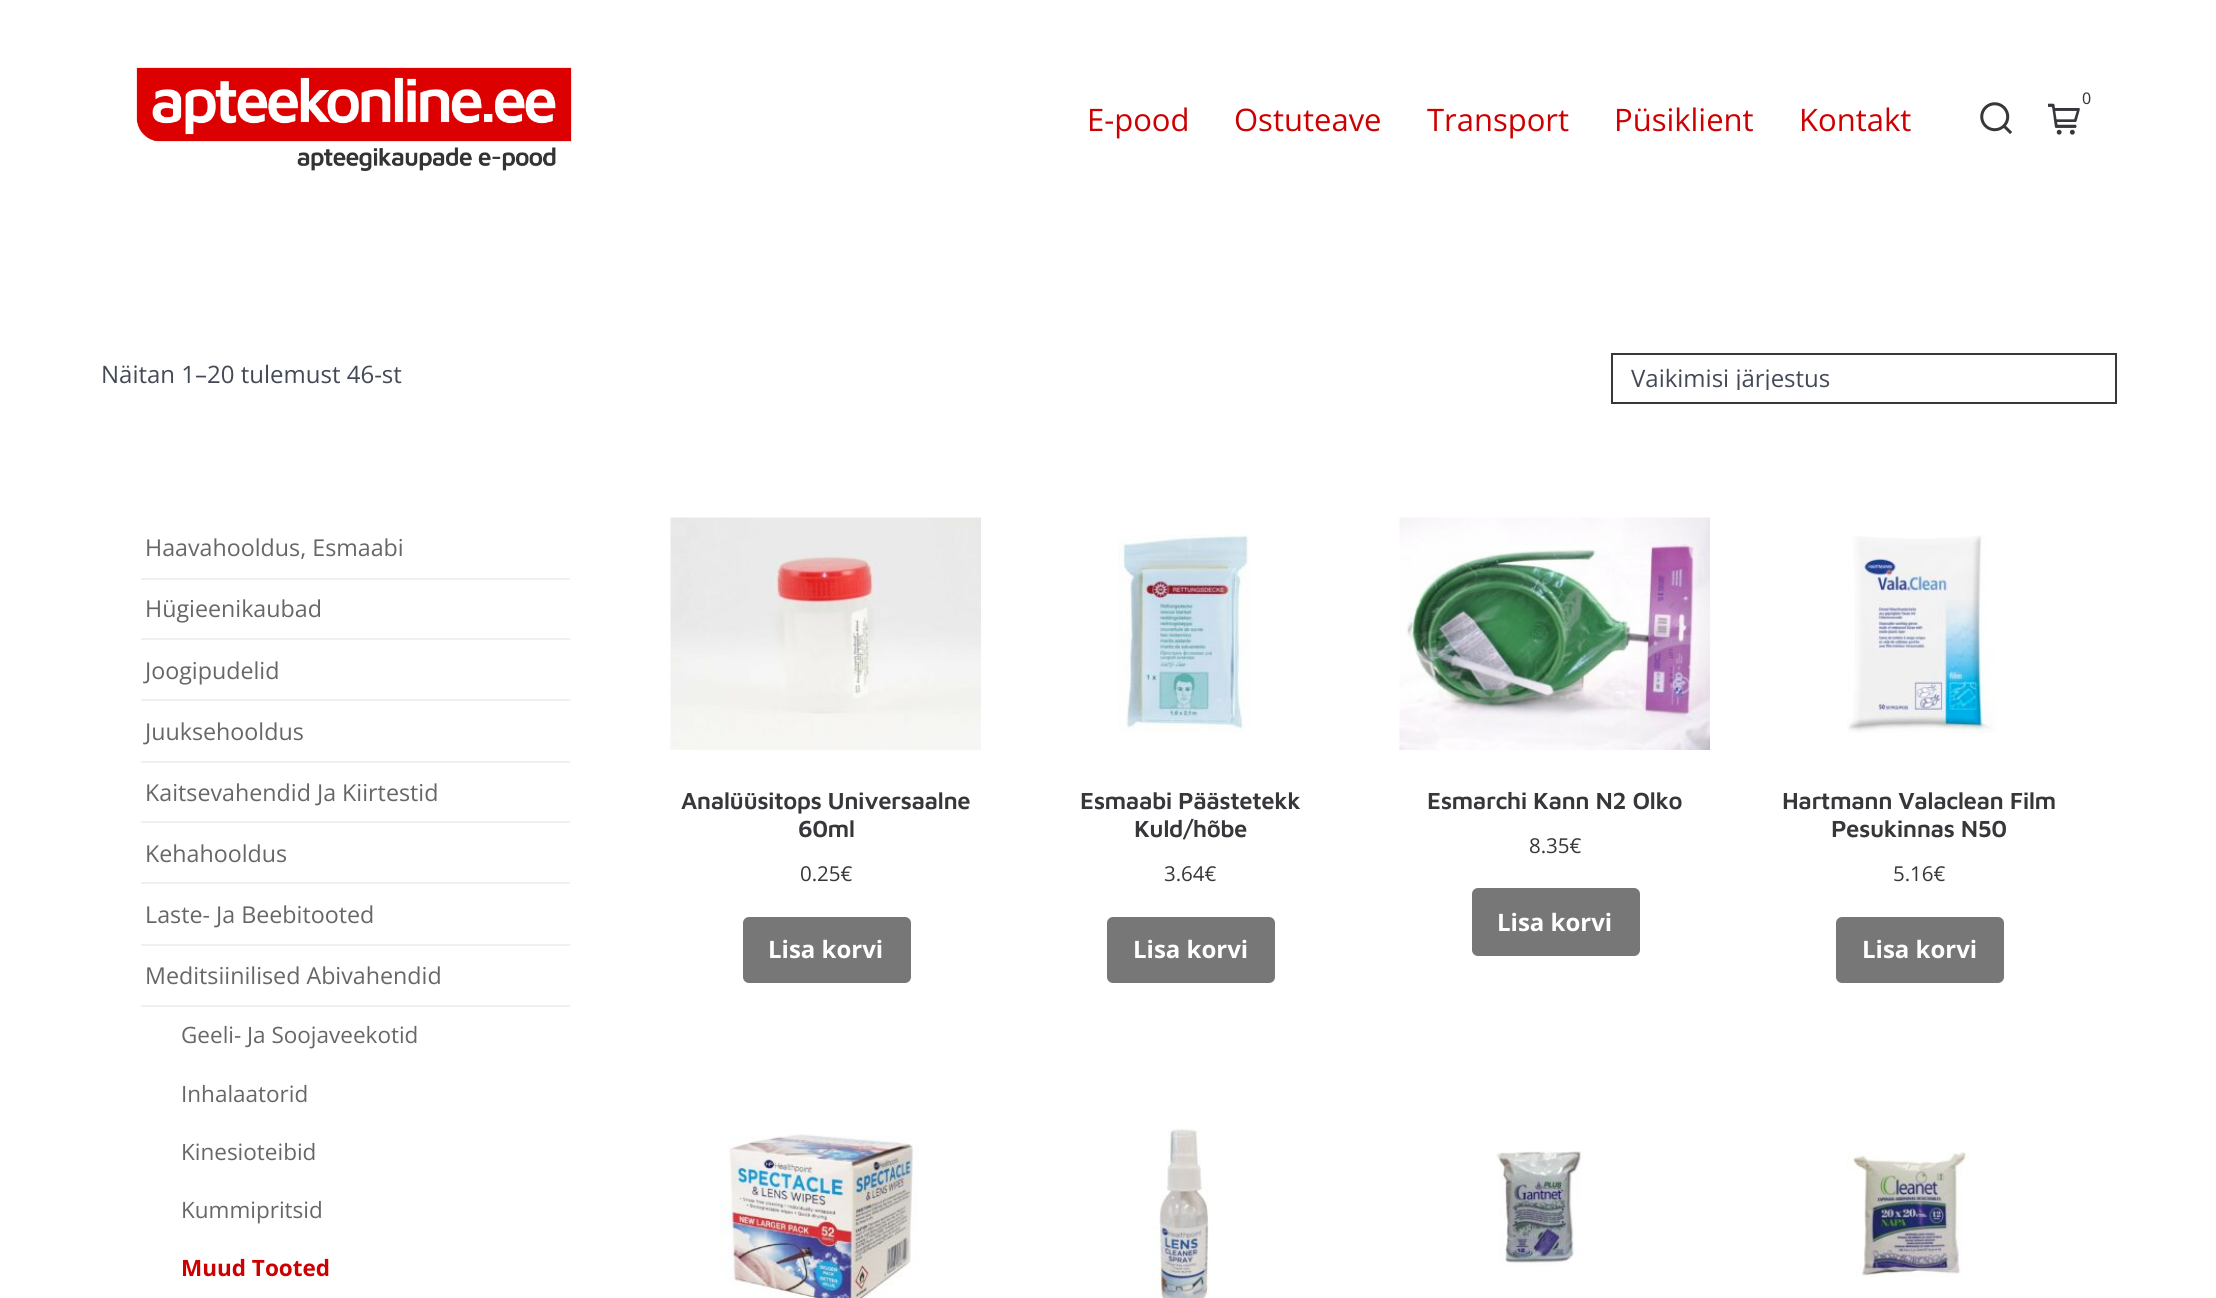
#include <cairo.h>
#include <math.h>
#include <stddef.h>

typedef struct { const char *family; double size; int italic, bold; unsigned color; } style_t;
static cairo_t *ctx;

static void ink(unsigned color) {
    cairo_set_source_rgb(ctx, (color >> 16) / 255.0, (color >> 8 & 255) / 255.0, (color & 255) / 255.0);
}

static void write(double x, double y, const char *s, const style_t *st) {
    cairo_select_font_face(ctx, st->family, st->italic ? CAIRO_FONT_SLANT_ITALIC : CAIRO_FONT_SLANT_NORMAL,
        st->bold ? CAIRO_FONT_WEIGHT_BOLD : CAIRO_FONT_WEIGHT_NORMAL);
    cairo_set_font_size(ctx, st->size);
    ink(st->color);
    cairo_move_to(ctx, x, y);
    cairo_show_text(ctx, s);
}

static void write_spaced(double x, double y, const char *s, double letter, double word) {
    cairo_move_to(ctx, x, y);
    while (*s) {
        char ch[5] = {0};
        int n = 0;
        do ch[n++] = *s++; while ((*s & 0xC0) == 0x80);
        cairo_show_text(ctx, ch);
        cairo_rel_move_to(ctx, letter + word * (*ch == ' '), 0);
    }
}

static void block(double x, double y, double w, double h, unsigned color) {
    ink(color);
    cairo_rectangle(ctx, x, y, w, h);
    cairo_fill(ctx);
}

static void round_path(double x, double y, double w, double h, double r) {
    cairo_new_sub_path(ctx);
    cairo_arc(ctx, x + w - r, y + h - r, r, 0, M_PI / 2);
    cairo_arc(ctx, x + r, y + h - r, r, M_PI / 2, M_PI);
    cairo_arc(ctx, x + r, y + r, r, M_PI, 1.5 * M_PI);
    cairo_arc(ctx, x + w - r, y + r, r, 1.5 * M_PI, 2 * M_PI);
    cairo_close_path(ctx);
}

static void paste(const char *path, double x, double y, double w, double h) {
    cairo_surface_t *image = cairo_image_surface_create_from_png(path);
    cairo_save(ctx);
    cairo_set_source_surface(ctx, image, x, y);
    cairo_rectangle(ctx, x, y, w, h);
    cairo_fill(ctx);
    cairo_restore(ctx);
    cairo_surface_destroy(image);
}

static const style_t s1 = {"Noto Sans", 16, 0, 0, 0x37363a};
static const style_t s2 = {"Open Sans", 31, 0, 0, 0xcc0000};
static const style_t s3 = {"Open Sans", 24, 0, 0, 0x434a56};
static const style_t s4 = {"Open Sans", 23.25, 0, 0, 0x676767};
static const style_t s5 = {"Open Sans", 22.5, 0, 0, 0x676767};
static const style_t s6 = {"Open Sans", 22.5, 0, 1, 0xcc0000};
static const style_t s7 = {"Open Sans", 20.5, 0, 0, 0x37363a};
static const style_t s8 = {"Open Sans", 24, 0, 1, 0xffffff};

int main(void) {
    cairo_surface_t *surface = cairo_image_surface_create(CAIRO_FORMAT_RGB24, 2216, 1298);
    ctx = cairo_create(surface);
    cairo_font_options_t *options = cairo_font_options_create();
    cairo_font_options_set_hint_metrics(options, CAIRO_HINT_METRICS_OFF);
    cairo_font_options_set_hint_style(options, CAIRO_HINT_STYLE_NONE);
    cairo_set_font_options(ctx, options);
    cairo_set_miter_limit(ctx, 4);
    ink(0xffffff);
    cairo_paint(ctx);
    write(2082, 104, "0", &s1);
    paste("pic1.png", 2048, 103, 32, 32);
    paste("pic2.png", 1980, 102, 32, 32);
    paste("pic3.png", 136, 67, 436, 104);
    write(1087, 131, "E-pood", &s2);
    write(1234, 131, "Ostuteave", &s2);
    write(1427, 131, "Transport", &s2);
    write(1614, 131, "Püsiklient", &s2);
    write(1799, 131, "Kontakt", &s2);
    write(101, 383, "Näitan 1–20 tulemust 46-st", &s3);
    cairo_rectangle(ctx, 1612, 354, 504, 49);
    ink(0x37363a);
    cairo_stroke(ctx);
    cairo_save(ctx);
    cairo_rectangle(ctx, 1631, 366, 466, 24);
    cairo_clip(ctx);
    write(1631, 387, "Vaikimisi järjestus", &s3);
    cairo_restore(ctx);
    block(141, 578, 429, 2, 0xf0f0f0);
    write(145, 556, "Haavahooldus, Esmaabi", &s4);
    block(141, 638, 429, 2, 0xf0f0f0);
    write(145, 617, "Hügieenikaubad", &s4);
    block(141, 699, 429, 2, 0xf0f0f0);
    write(145, 679, "Joogipudelid", &s4);
    block(141, 761, 429, 2, 0xf0f0f0);
    write(145, 740, "Juuksehooldus", &s4);
    block(141, 821, 429, 2, 0xf0f0f0);
    write(145, 801, "Kaitsevahendid Ja Kiirtestid", &s4);
    block(141, 882, 429, 2, 0xf0f0f0);
    write(145, 862, "Kehahooldus", &s4);
    block(141, 944, 429, 2, 0xf0f0f0);
    write(145, 923, "Laste- Ja Beebitooted", &s4);
    block(141, 1005, 429, 2, 0xf0f0f0);
    write(145, 984, "Meditsiinilised Abivahendid", &s4);
    write(181, 1043, "Geeli- Ja Soojaveekotid", &s5);
    write(181, 1102, "Inhalaatorid", &s5);
    write(181, 1160, "Kinesioteibid", &s5);
    write(181, 1218, "Kummipritsid", &s5);
    write(181, 1276, "Muud Tooted", &s6);
    paste("pic4.png", 670, 517, 311, 233);
    cairo_select_font_face(ctx, "Maven Pro SemiBold", CAIRO_FONT_SLANT_NORMAL, CAIRO_FONT_WEIGHT_NORMAL);
    cairo_set_font_size(ctx, 24);
    ink(0x37363a);
    write_spaced(681, 809, "Analüüsitops Universaalne", -0.5, 0);
    write_spaced(798, 837, "60ml", -0.5, 0);
    write(800, 881, "0.25€", &s7);
    ink(0x777777);
    round_path(743, 917, 168, 66, 6);
    cairo_fill(ctx);
    write(768, 958, "Lisa korvi", &s8);
    paste("pic5.png", 1118, 534, 132, 199);
    cairo_select_font_face(ctx, "Maven Pro SemiBold", CAIRO_FONT_SLANT_NORMAL, CAIRO_FONT_WEIGHT_NORMAL);
    ink(0x37363a);
    write_spaced(1080, 809, "Esmaabi Päästetekk", -0.5, 0);
    write_spaced(1134, 837, "Kuld/hõbe", -0.5, 0);
    write(1164, 881, "3.64€", &s7);
    ink(0x777777);
    round_path(1107, 917, 168, 66, 6);
    cairo_fill(ctx);
    write(1133, 958, "Lisa korvi", &s8);
    paste("pic6.png", 1399, 517, 311, 233);
    cairo_select_font_face(ctx, "Maven Pro SemiBold", CAIRO_FONT_SLANT_NORMAL, CAIRO_FONT_WEIGHT_NORMAL);
    ink(0x37363a);
    write_spaced(1427, 809, "Esmarchi Kann N2 Olko", -0.5, 0);
    write(1529, 853, "8.35€", &s7);
    ink(0x777777);
    round_path(1472, 888, 168, 68, 6);
    cairo_fill(ctx);
    write(1497, 931, "Lisa korvi", &s8);
    paste("pic7.png", 1847, 535, 150, 198);
    cairo_select_font_face(ctx, "Maven Pro SemiBold", CAIRO_FONT_SLANT_NORMAL, CAIRO_FONT_WEIGHT_NORMAL);
    ink(0x37363a);
    write_spaced(1782, 809, "Hartmann Valaclean Film", -0.5, 0);
    write_spaced(1831, 837, "Pesukinnas N50", -0.5, 0);
    write(1893, 881, "5.16€", &s7);
    ink(0x777777);
    round_path(1836, 917, 168, 66, 6);
    cairo_fill(ctx);
    write(1862, 958, "Lisa korvi", &s8);
    paste("pic8.png", 720, 1134, 199, 164);
    paste("pic9.png", 1151, 1128, 58, 170);
    paste("pic10.png", 1496, 1151, 86, 116);
    paste("pic11.png", 1847, 1152, 123, 125);
    cairo_surface_write_to_png(surface, "screenshot.png");
    cairo_font_options_destroy(options);
    cairo_destroy(ctx);
    cairo_surface_destroy(surface);
    return 0;
}
